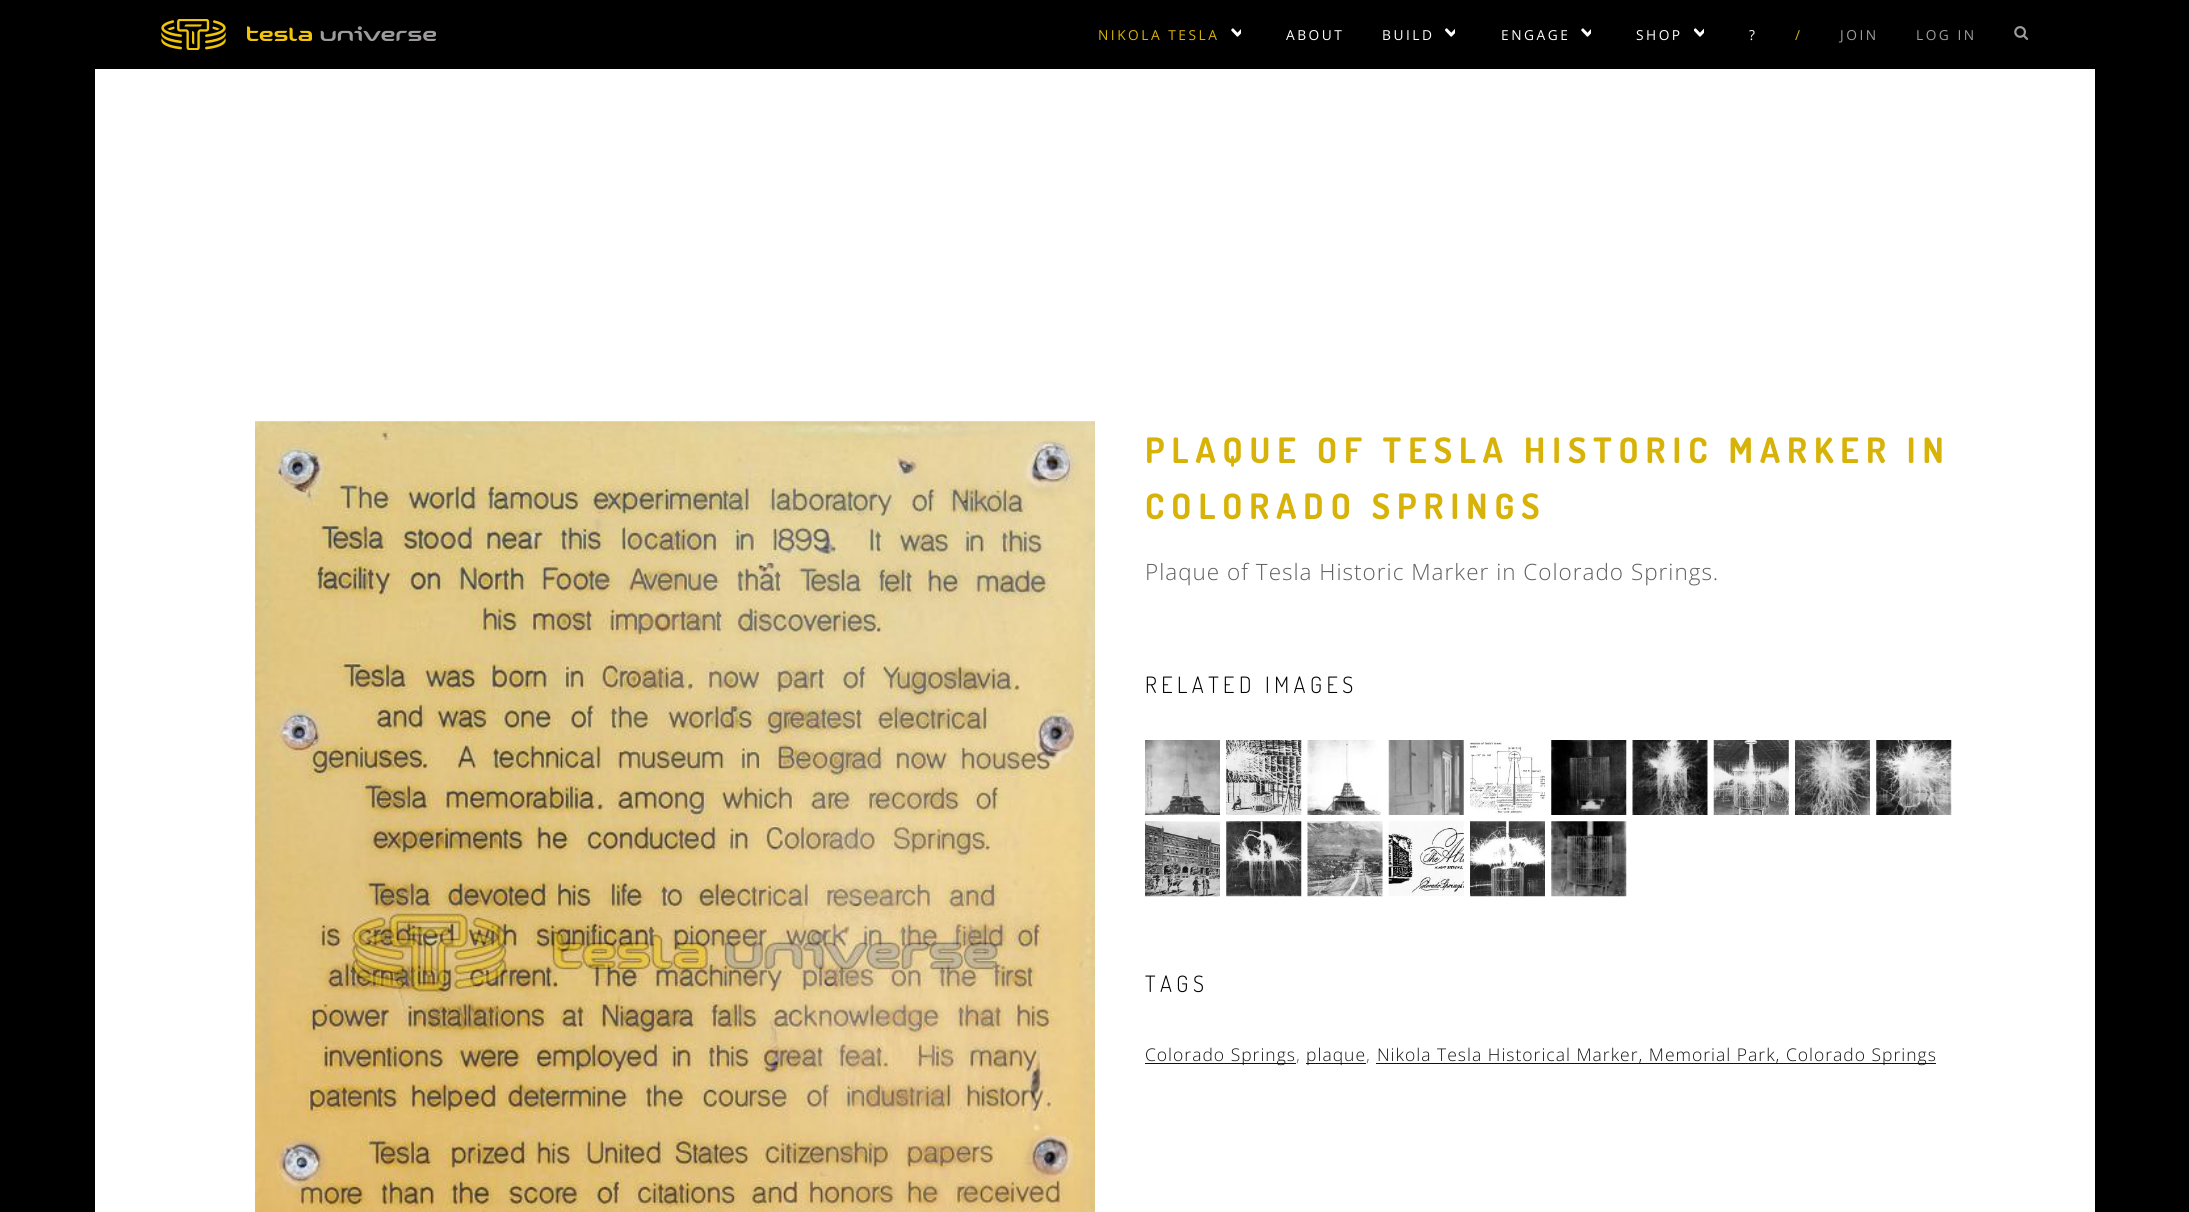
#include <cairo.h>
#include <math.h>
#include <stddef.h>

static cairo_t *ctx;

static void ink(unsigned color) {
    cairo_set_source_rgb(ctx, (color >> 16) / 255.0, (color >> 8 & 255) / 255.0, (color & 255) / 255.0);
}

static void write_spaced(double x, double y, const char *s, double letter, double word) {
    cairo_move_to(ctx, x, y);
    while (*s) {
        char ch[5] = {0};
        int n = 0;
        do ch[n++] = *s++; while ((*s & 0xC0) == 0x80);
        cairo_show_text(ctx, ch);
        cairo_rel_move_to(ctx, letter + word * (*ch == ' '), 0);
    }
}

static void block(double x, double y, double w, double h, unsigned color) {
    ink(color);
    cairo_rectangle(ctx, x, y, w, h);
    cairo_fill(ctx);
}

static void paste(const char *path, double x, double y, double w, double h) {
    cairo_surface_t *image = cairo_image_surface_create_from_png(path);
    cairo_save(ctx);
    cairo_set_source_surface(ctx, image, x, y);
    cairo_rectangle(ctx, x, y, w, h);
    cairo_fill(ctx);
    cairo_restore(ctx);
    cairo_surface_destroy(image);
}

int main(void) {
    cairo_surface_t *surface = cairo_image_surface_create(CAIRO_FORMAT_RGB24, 2189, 1212);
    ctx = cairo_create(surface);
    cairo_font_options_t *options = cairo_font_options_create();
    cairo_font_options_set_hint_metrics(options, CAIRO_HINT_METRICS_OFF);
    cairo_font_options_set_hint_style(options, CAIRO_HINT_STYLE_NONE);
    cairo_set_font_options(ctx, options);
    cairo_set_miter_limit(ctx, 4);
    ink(0x000000);
    cairo_paint(ctx);
    block(95, 69, 2000, 1143, 0xffffff);
    paste("pic1.png", 161, 19, 275, 31);
    cairo_select_font_face(ctx, "Open Sans", CAIRO_FONT_SLANT_NORMAL, CAIRO_FONT_WEIGHT_NORMAL);
    cairo_set_font_size(ctx, 13.75);
    ink(0xd7b209);
    write_spaced(1098, 40, "NIKOLA TESLA", 2.5, 0);
    paste("pic2.png", 1231, 28, 10, 9);
    ink(0xffffff);
    write_spaced(1286, 40, "ABOUT", 2.5, 0);
    write_spaced(1382, 40, "BUILD", 2.5, 0);
    paste("pic3.png", 1445, 28, 10, 9);
    write_spaced(1501, 40, "ENGAGE", 2.5, 0);
    paste("pic2.png", 1581, 28, 10, 9);
    write_spaced(1636, 40, "SHOP", 2.5, 0);
    paste("pic4.png", 1694, 28, 10, 9);
    write_spaced(1749, 40, "?", 2.5, 0);
    ink(0xd7b209);
    write_spaced(1795, 40, "/", 2.5, 0);
    ink(0x9d9d9d);
    write_spaced(1840, 40, "JOIN", 2.5, 0);
    write_spaced(1916, 40, "LOG IN", 2.5, 0);
    paste("pic5.png", 2014, 26, 15, 14);
    paste("pic6.png", 255, 421, 840, 791);
    cairo_select_font_face(ctx, "Dosis", CAIRO_FONT_SLANT_NORMAL, CAIRO_FONT_WEIGHT_BOLD);
    cairo_set_font_size(ctx, 35);
    ink(0xd7b209);
    write_spaced(1145, 463, "PLAQUE OF TESLA HISTORIC MARKER IN", 7, 0);
    write_spaced(1145, 519, "COLORADO SPRINGS", 7, 0);
    cairo_select_font_face(ctx, "Open Sans Light", CAIRO_FONT_SLANT_NORMAL, CAIRO_FONT_WEIGHT_NORMAL);
    cairo_set_font_size(ctx, 22.5);
    ink(0x5f5f5f);
    write_spaced(1145, 580, "Plaque of Tesla Historic Marker in Colorado Springs.", 1, 0);
    cairo_select_font_face(ctx, "Dosis Light", CAIRO_FONT_SLANT_NORMAL, CAIRO_FONT_WEIGHT_NORMAL);
    ink(0x000000);
    write_spaced(1145, 693, "RELATED IMAGES", 4.5, 0);
    paste("pic7.png", 1145, 740, 75, 75);
    paste("pic8.png", 1226, 740, 76, 75);
    paste("pic9.png", 1307, 740, 74, 75);
    paste("pic10.png", 1388, 740, 76, 75);
    paste("pic11.png", 1470, 740, 75, 75);
    paste("pic12.png", 1551, 740, 76, 75);
    paste("pic13.png", 1632, 740, 76, 75);
    paste("pic14.png", 1713, 740, 76, 75);
    paste("pic15.png", 1795, 740, 75, 75);
    paste("pic16.png", 1876, 740, 76, 75);
    paste("pic17.png", 1145, 821, 75, 76);
    paste("pic18.png", 1226, 821, 76, 76);
    paste("pic19.png", 1307, 821, 76, 76);
    paste("pic20.png", 1388, 821, 76, 75);
    paste("pic21.png", 1470, 821, 75, 76);
    paste("pic22.png", 1551, 821, 76, 76);
    write_spaced(1145, 992, "TAGS", 4.5, 0);
    block(1145, 1063, 151, 1, 0x111111);
    cairo_select_font_face(ctx, "Open Sans Light", CAIRO_FONT_SLANT_NORMAL, CAIRO_FONT_WEIGHT_NORMAL);
    cairo_set_font_size(ctx, 17.5);
    write_spaced(1145, 1061, "Colorado Springs", 1, 0);
    ink(0x5f5f5f);
    write_spaced(1296, 1061, ",", 1, 0);
    block(1306, 1063, 60, 1, 0x111111);
    write_spaced(1306, 1061, "plaque", 1, 0);
    ink(0x5f5f5f);
    write_spaced(1366, 1061, ",", 1, 0);
    block(1376, 1063, 560, 1, 0x111111);
    write_spaced(1377, 1061, "Nikola Tesla Historical Marker, Memorial Park, Colorado Springs", 1, 0);
    cairo_surface_write_to_png(surface, "screenshot.png");
    cairo_font_options_destroy(options);
    cairo_destroy(ctx);
    cairo_surface_destroy(surface);
    return 0;
}
